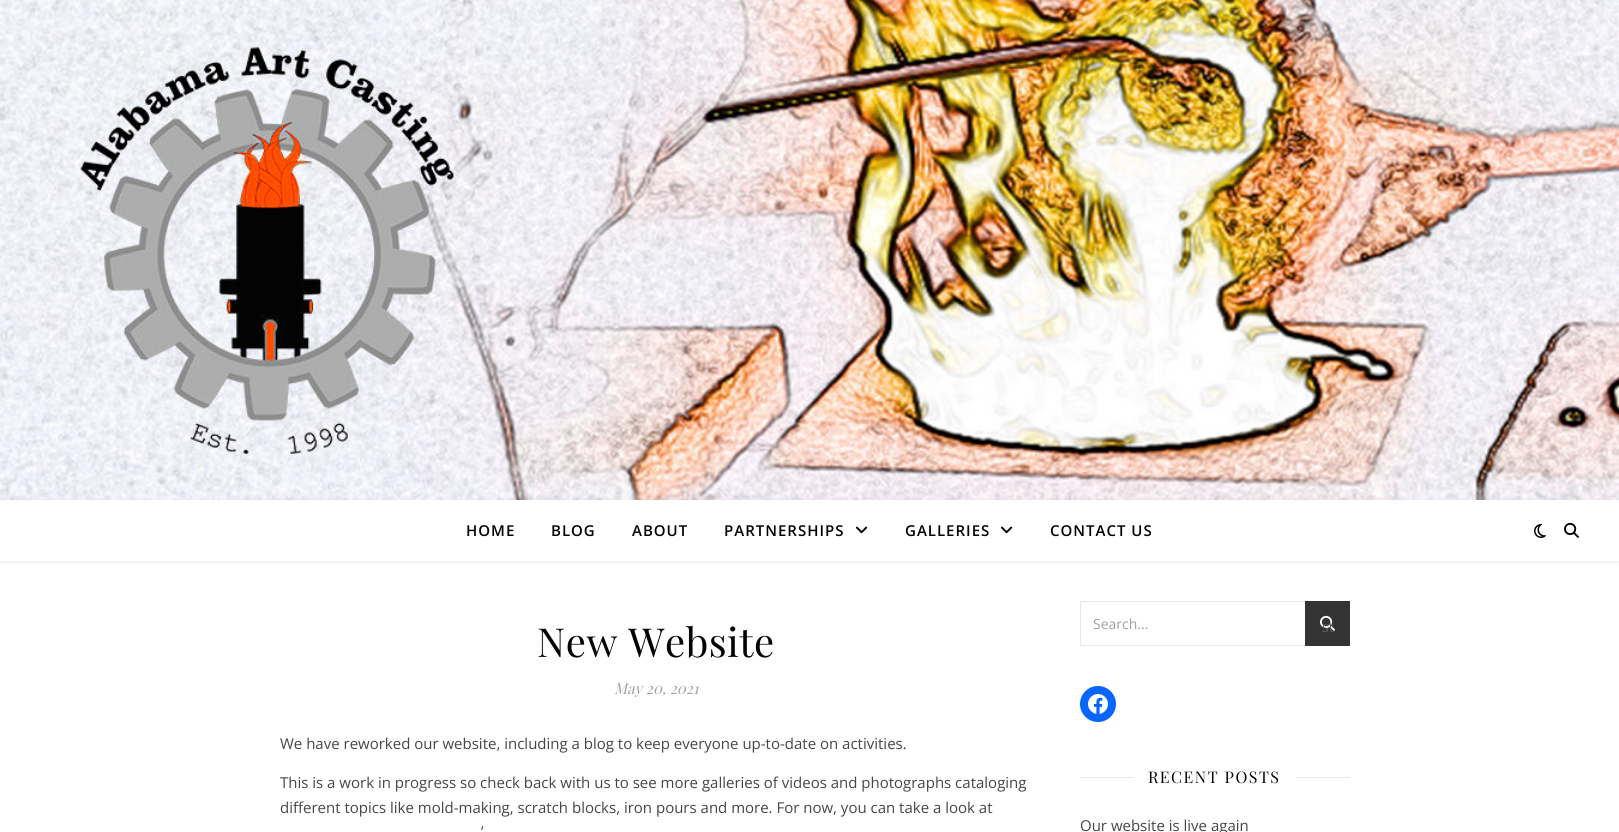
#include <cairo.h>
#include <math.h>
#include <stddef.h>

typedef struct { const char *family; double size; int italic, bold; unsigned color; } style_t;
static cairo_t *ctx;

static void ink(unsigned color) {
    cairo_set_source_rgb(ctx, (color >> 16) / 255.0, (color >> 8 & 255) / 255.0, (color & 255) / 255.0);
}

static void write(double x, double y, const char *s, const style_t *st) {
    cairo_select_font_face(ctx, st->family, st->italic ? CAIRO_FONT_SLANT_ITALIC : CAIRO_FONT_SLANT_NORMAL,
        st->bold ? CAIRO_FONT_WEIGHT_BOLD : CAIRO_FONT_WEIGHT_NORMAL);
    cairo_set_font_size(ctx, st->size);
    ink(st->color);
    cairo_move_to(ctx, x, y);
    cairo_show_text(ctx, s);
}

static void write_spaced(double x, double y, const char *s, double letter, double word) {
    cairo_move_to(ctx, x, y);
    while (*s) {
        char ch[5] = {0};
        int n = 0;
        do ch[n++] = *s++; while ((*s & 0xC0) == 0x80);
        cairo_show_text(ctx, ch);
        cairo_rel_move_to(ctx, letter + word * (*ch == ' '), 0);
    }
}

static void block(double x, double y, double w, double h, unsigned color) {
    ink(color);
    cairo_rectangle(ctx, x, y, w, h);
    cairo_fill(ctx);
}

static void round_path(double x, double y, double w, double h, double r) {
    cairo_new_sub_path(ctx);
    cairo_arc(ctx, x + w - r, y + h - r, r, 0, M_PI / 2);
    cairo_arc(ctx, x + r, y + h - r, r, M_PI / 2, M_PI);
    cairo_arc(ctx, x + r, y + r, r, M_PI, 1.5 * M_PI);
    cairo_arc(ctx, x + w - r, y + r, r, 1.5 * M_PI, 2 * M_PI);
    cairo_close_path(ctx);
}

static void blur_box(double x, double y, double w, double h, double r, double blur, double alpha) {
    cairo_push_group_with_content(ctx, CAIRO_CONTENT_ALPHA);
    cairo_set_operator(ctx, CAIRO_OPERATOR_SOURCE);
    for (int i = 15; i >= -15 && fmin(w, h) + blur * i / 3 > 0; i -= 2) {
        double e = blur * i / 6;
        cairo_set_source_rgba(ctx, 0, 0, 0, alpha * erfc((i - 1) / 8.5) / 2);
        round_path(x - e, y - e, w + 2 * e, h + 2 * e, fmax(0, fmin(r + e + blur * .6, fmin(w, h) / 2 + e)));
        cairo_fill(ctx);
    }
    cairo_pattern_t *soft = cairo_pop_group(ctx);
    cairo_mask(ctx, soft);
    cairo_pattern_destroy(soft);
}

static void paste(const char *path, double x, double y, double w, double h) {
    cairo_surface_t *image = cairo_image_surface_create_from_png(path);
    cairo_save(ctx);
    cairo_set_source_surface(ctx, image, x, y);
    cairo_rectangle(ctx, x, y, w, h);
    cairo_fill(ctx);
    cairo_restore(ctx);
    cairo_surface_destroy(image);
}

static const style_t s1 = {"Playfair Display", 15, 1, 0, 0xa1a1a1};
static const style_t s2 = {"Open Sans", 15, 0, 0, 0x464646};
static const style_t s3 = {"Open Sans", 14, 0, 0, 0xa1a1a1};
static const style_t s4 = {"Open Sans", 14, 0, 0, 0x636363};

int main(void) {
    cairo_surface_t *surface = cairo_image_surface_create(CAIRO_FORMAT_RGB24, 1619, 832);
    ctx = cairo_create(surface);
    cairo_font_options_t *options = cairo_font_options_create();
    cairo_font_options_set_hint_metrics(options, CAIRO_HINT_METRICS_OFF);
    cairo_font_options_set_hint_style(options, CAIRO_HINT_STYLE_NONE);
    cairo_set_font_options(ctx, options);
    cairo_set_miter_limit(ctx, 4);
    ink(0xffffff);
    cairo_paint(ctx);
    paste("pic1.png", 0, 0, 1619, 500);
    cairo_save(ctx);
    cairo_set_fill_rule(ctx, CAIRO_FILL_RULE_EVEN_ODD);
    cairo_new_path(ctx);
    cairo_move_to(ctx, 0, 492);
    cairo_line_to(ctx, 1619, 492);
    cairo_line_to(ctx, 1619, 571);
    cairo_line_to(ctx, 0, 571);
    cairo_close_path(ctx);
    cairo_move_to(ctx, 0, 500);
    cairo_line_to(ctx, 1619, 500);
    cairo_line_to(ctx, 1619, 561);
    cairo_line_to(ctx, 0, 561);
    cairo_close_path(ctx);
    cairo_clip(ctx);
    ink(0x000000);
    blur_box(0, 501, 1619, 61, 0, 2.5, 0.1);
    cairo_restore(ctx);
    cairo_select_font_face(ctx, "Open Sans SemiBold", CAIRO_FONT_SLANT_NORMAL, CAIRO_FONT_WEIGHT_NORMAL);
    cairo_set_font_size(ctx, 15);
    ink(0x030303);
    write_spaced(466, 536, "HOME", 1, 0);
    write_spaced(551, 536, "BLOG", 1, 0);
    write_spaced(632, 536, "ABOUT", 1, 0);
    write_spaced(724, 536, "PARTNERSHIPS", 1, 0);
    paste("pic2.png", 856, 526, 12, 8);
    write_spaced(905, 536, "GALLERIES", 1, 0);
    paste("pic2.png", 1001, 526, 12, 8);
    write_spaced(1050, 536, "CONTACT US", 1, 0);
    paste("pic3.png", 1534, 524, 12, 14);
    paste("pic4.png", 1564, 522, 15, 16);
    cairo_select_font_face(ctx, "Playfair Display", CAIRO_FONT_SLANT_NORMAL, CAIRO_FONT_WEIGHT_NORMAL);
    cairo_set_font_size(ctx, 40);
    write_spaced(537, 657, "New Website", 0.5, 0);
    write(614, 694, "May 20, 2021", &s1);
    write(280, 749, "We have reworked our website, including a blog to keep everyone up-to-date on activities.", &s2);
    write(280, 788, "This is a work in progress so check back with us to see more galleries of videos and photographs cataloging", &s2);
    write(280, 813, "different topics like mold-making, scratch blocks, iron pours and more. For now, you can take a look at", &s2);
    write(481, 837, "’", &s2);
    cairo_rectangle(ctx, 1080.5, 601.5, 269, 44);
    ink(0xe8e8e8);
    cairo_set_line_width(ctx, 1);
    cairo_stroke(ctx);
    write(1093, 629, "Search...", &s3);
    block(1305, 601, 45, 45, 0x333333);
    paste("pic5.png", 1320, 615, 15, 16);
    write(1322, 632, "st", &s4);
    ink(0x0866ff);
    cairo_new_path(ctx);
    cairo_arc(ctx, 1098, 704, 18, 0, 2 * M_PI);
    cairo_fill(ctx);
    paste("pic6.png", 1088, 694, 20, 20);
    block(1080, 777, 53, 1, 0xe8e8e8);
    cairo_select_font_face(ctx, "Playfair Display", CAIRO_FONT_SLANT_NORMAL, CAIRO_FONT_WEIGHT_NORMAL);
    cairo_set_font_size(ctx, 16);
    ink(0x030303);
    write_spaced(1148, 783, "RECENT POSTS", 1.5, 0);
    block(1296, 777, 54, 1, 0xe8e8e8);
    write(1080, 831, "Our website is live again", &s2);
    cairo_surface_write_to_png(surface, "screenshot.png");
    cairo_font_options_destroy(options);
    cairo_destroy(ctx);
    cairo_surface_destroy(surface);
    return 0;
}
